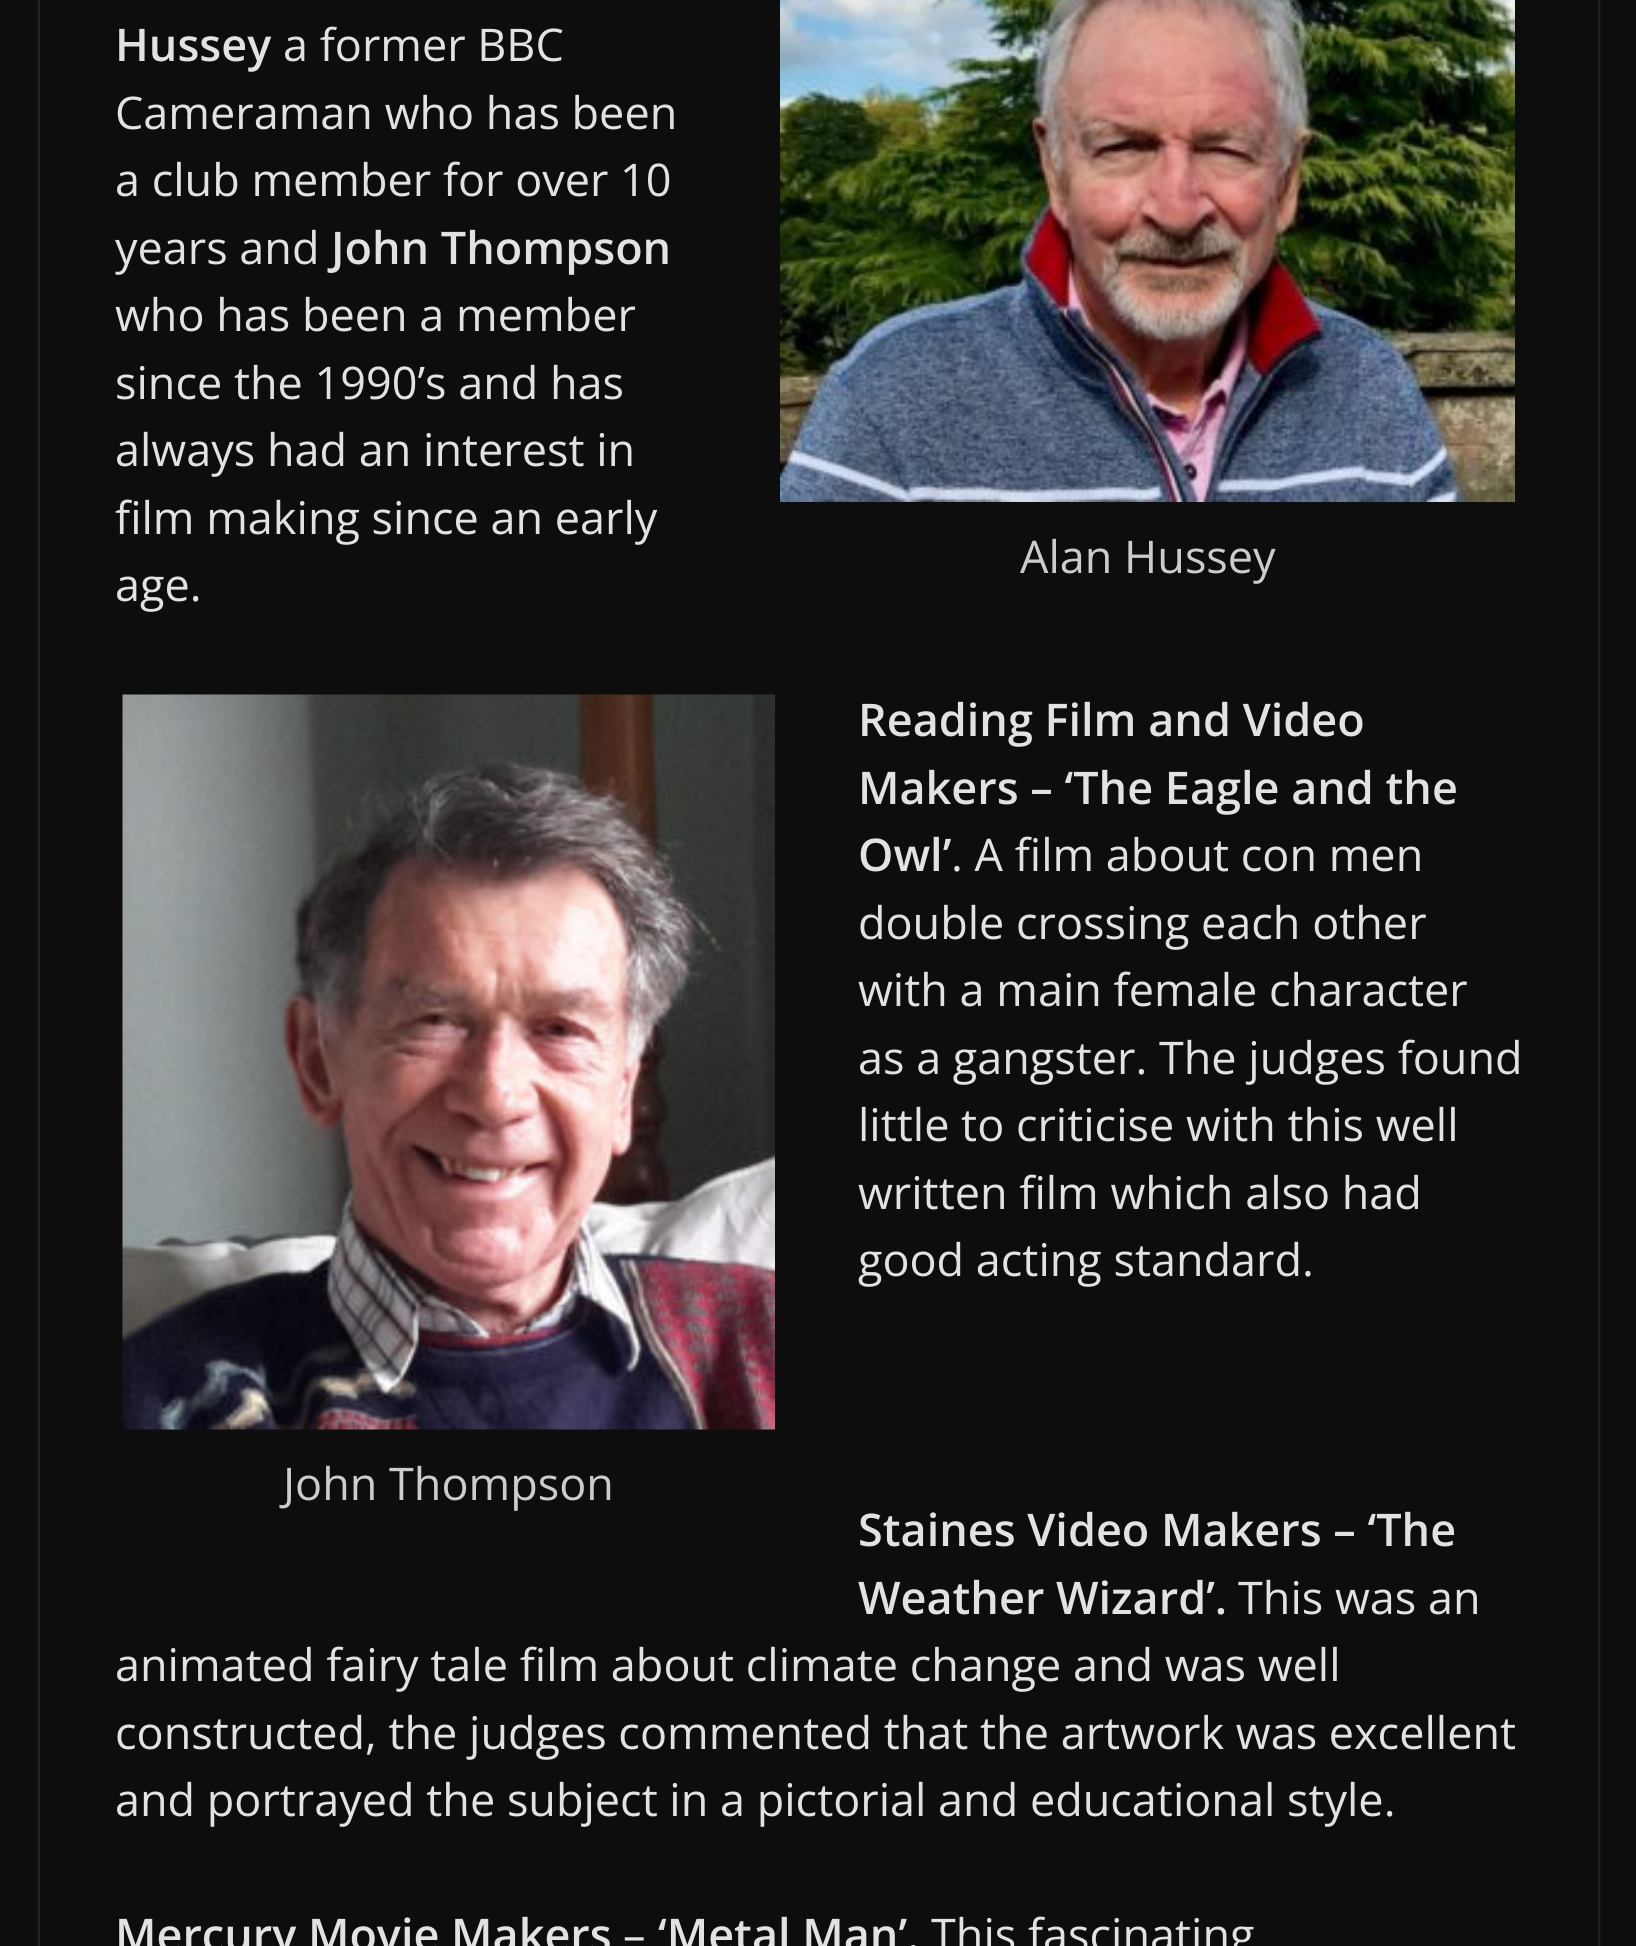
#include <cairo.h>
#include <math.h>
#include <stddef.h>

typedef struct { const char *family; double size; int italic, bold; unsigned color; } style_t;
static cairo_t *ctx;

static void ink(unsigned color) {
    cairo_set_source_rgb(ctx, (color >> 16) / 255.0, (color >> 8 & 255) / 255.0, (color & 255) / 255.0);
}

static void write(double x, double y, const char *s, const style_t *st) {
    cairo_select_font_face(ctx, st->family, st->italic ? CAIRO_FONT_SLANT_ITALIC : CAIRO_FONT_SLANT_NORMAL,
        st->bold ? CAIRO_FONT_WEIGHT_BOLD : CAIRO_FONT_WEIGHT_NORMAL);
    cairo_set_font_size(ctx, st->size);
    ink(st->color);
    cairo_move_to(ctx, x, y);
    cairo_show_text(ctx, s);
}

static void round_path(double x, double y, double w, double h, double r) {
    cairo_new_sub_path(ctx);
    cairo_arc(ctx, x + w - r, y + h - r, r, 0, M_PI / 2);
    cairo_arc(ctx, x + r, y + h - r, r, M_PI / 2, M_PI);
    cairo_arc(ctx, x + r, y + r, r, M_PI, 1.5 * M_PI);
    cairo_arc(ctx, x + w - r, y + r, r, 1.5 * M_PI, 2 * M_PI);
    cairo_close_path(ctx);
}

static void blur_box(double x, double y, double w, double h, double r, double blur, double alpha) {
    cairo_push_group_with_content(ctx, CAIRO_CONTENT_ALPHA);
    cairo_set_operator(ctx, CAIRO_OPERATOR_SOURCE);
    for (int i = 15; i >= -15 && fmin(w, h) + blur * i / 3 > 0; i -= 2) {
        double e = blur * i / 6;
        cairo_set_source_rgba(ctx, 0, 0, 0, alpha * erfc((i - 1) / 8.5) / 2);
        round_path(x - e, y - e, w + 2 * e, h + 2 * e, fmax(0, fmin(r + e + blur * .6, fmin(w, h) / 2 + e)));
        cairo_fill(ctx);
    }
    cairo_pattern_t *soft = cairo_pop_group(ctx);
    cairo_mask(ctx, soft);
    cairo_pattern_destroy(soft);
}

static void paste(const char *path, double x, double y, double w, double h) {
    cairo_surface_t *image = cairo_image_surface_create_from_png(path);
    cairo_save(ctx);
    cairo_set_source_surface(ctx, image, x, y);
    cairo_rectangle(ctx, x, y, w, h);
    cairo_fill(ctx);
    cairo_restore(ctx);
    cairo_surface_destroy(image);
}

static const style_t s1 = {"Open Sans SemiBold", 45, 0, 0, 0xe3e2e2};
static const style_t s2 = {"Open Sans", 45, 0, 0, 0xe3e2e2};
static const style_t s3 = {"Open Sans", 45, 0, 0, 0xcccccc};

int main(void) {
    cairo_surface_t *surface = cairo_image_surface_create(CAIRO_FORMAT_RGB24, 1636, 1946);
    ctx = cairo_create(surface);
    cairo_font_options_t *options = cairo_font_options_create();
    cairo_font_options_set_hint_metrics(options, CAIRO_HINT_METRICS_OFF);
    cairo_font_options_set_hint_style(options, CAIRO_HINT_STYLE_NONE);
    cairo_set_font_options(ctx, options);
    cairo_set_miter_limit(ctx, 4);
    ink(0x0d0d0d);
    cairo_paint(ctx);
    cairo_save(ctx);
    cairo_set_fill_rule(ctx, CAIRO_FILL_RULE_EVEN_ODD);
    cairo_new_path(ctx);
    cairo_move_to(ctx, 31, 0);
    cairo_line_to(ctx, 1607, 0);
    cairo_line_to(ctx, 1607, 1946);
    cairo_line_to(ctx, 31, 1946);
    cairo_close_path(ctx);
    cairo_move_to(ctx, 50, -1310);
    cairo_line_to(ctx, 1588, -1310);
    cairo_curve_to(ctx, 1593.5, -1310, 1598, -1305.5, 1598, -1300);
    cairo_line_to(ctx, 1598, 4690);
    cairo_curve_to(ctx, 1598, 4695.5, 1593.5, 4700, 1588, 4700);
    cairo_line_to(ctx, 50, 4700);
    cairo_curve_to(ctx, 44.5, 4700, 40, 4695.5, 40, 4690);
    cairo_line_to(ctx, 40, -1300);
    cairo_curve_to(ctx, 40, -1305.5, 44.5, -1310, 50, -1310);
    cairo_close_path(ctx);
    cairo_clip(ctx);
    ink(0xffffff);
    blur_box(40, -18, 1558, 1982, 10, 2.5, 0.24);
    cairo_restore(ctx);
    write(115, 61, "Hussey", &s1);
    write(283, 61, "a former BBC", &s2);
    write(115, 129, "Cameraman who has been", &s2);
    write(115, 196, "a club member for over 10", &s2);
    write(115, 264, "years and", &s2);
    write(331, 264, "John Thompson", &s1);
    write(115, 331, "who has been a member", &s2);
    write(115, 399, "since the 1990’s and has", &s2);
    write(115, 466, "always had an interest in", &s2);
    write(115, 534, "film making since an early", &s2);
    write(115, 601, "age.", &s2);
    paste("pic1.png", 780, 0, 735, 502);
    write(1020, 573, "Alan Hussey", &s3);
    write(858, 736, "Reading Film and Video", &s1);
    write(858, 804, "Makers – ‘The Eagle and the", &s1);
    write(858, 871, "Owl’", &s1);
    write(951, 871, ". A film about con men", &s2);
    write(858, 939, "double crossing each other", &s2);
    write(858, 1006, "with a main female character", &s2);
    write(858, 1074, "as a gangster. The judges found", &s2);
    write(858, 1141, "little to criticise with this well", &s2);
    write(858, 1209, "written film which also had", &s2);
    write(858, 1276, "good acting standard.", &s2);
    paste("pic2.png", 122, 694, 653, 736);
    write(283, 1500, "John Thompson", &s3);
    write(858, 1546, "Staines Video Makers – ‘The", &s1);
    write(858, 1614, "Weather Wizard’.", &s1);
    write(1238, 1614, "This was an", &s2);
    write(115, 1681, "animated fairy tale film about climate change and was well", &s2);
    write(115, 1749, "constructed, the judges commented that the artwork was excellent", &s2);
    write(115, 1816, "and portrayed the subject in a pictorial and educational style.", &s2);
    write(115, 1951, "Mercury Movie Makers", &s1);
    write(623, 1951, "–", &s2);
    write(658, 1951, "‘Metal Man’.", &s1);
    write(931, 1951, "This fascinating", &s2);
    cairo_surface_write_to_png(surface, "screenshot.png");
    cairo_font_options_destroy(options);
    cairo_destroy(ctx);
    cairo_surface_destroy(surface);
    return 0;
}
